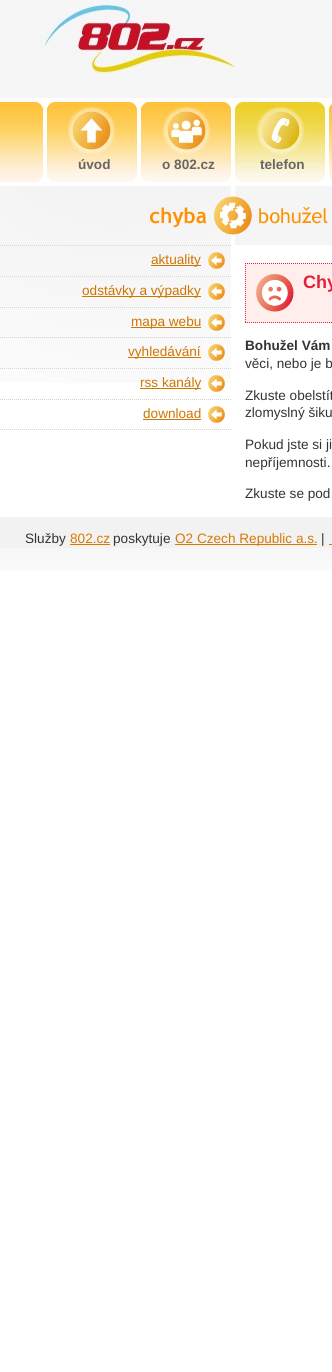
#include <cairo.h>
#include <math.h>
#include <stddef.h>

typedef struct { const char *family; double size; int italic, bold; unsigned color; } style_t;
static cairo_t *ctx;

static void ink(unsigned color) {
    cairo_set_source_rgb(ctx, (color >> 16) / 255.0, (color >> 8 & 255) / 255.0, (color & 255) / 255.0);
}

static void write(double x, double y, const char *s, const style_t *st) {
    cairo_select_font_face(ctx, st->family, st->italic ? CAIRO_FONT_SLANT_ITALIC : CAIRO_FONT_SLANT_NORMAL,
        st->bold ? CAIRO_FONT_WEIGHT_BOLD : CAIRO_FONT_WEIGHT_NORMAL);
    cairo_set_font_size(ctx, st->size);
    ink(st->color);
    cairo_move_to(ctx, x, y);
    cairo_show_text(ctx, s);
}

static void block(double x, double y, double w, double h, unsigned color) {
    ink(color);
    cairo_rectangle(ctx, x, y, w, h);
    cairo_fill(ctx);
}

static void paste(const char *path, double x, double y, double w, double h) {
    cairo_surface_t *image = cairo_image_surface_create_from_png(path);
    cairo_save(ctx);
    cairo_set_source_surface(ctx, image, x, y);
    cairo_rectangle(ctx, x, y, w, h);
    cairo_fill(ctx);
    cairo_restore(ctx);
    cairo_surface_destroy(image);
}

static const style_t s1 = {"Liberation Sans", 13.6, 0, 1, 0x666666};
static const style_t s2 = {"Liberation Sans", 13.6, 0, 0, 0xce7502};
static const style_t s3 = {"Liberation Sans", 18, 0, 1, 0xe3203a};
static const style_t s4 = {"Liberation Sans", 13.6, 0, 1, 0x333333};
static const style_t s5 = {"Liberation Sans", 13.6, 0, 0, 0x333333};
static const style_t s6 = {"Liberation Sans", 13.6, 0, 0, 0xd87a00};

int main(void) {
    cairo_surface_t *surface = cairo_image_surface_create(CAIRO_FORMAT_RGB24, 332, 1372);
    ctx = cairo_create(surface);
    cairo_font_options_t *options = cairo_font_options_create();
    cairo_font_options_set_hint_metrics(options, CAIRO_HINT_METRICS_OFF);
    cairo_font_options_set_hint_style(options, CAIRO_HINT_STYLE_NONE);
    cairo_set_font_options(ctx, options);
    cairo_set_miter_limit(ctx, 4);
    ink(0xffffff);
    cairo_paint(ctx);
    block(0, 0, 332, 98, 0xf6f6f6);
    paste("pic1.png", 36, 0, 204, 80);
    paste("pic2.png", 0, 102, 43, 80);
    paste("pic3.png", 47, 102, 90, 80);
    write(78, 169, "úvod", &s1);
    paste("pic4.png", 141, 102, 90, 80);
    write(162, 169, "o 802.cz", &s1);
    paste("pic5.png", 235, 102, 90, 80);
    write(260, 169, "telefon", &s1);
    paste("pic6.png", 329, 102, 3, 80);
    paste("pic7.png", 0, 186, 332, 59);
    paste("pic8.png", 0, 245, 231, 138);
    cairo_new_path(ctx);
    cairo_move_to(ctx, 0, 429.5);
    cairo_line_to(ctx, 231, 429.5);
    ink(0xd7d4cf);
    cairo_set_line_width(ctx, 1);
    cairo_set_dash(ctx, (double[]){1, 1}, 2, 0);
    cairo_stroke(ctx);
    paste("pic9.png", 208, 252, 17, 17);
    cairo_new_path(ctx);
    cairo_move_to(ctx, 0, 245.5);
    cairo_line_to(ctx, 231, 245.5);
    cairo_stroke(ctx);
    block(151, 265, 50, 1, 0xce7502);
    write(151, 264, "aktuality", &s2);
    paste("pic10.png", 208, 283, 17, 17);
    cairo_new_path(ctx);
    cairo_move_to(ctx, 0, 276.5);
    cairo_line_to(ctx, 231, 276.5);
    ink(0xd7d4cf);
    cairo_stroke(ctx);
    block(82, 296, 119, 1, 0xce7502);
    write(82, 295, "odstávky a výpadky", &s2);
    paste("pic11.png", 208, 314, 17, 17);
    cairo_new_path(ctx);
    cairo_move_to(ctx, 0, 307.5);
    cairo_line_to(ctx, 231, 307.5);
    ink(0xd7d4cf);
    cairo_stroke(ctx);
    block(131, 327, 70, 1, 0xce7502);
    write(131, 326, "mapa webu", &s2);
    paste("pic12.png", 208, 344, 17, 17);
    cairo_new_path(ctx);
    cairo_move_to(ctx, 0, 337.5);
    cairo_line_to(ctx, 231, 337.5);
    ink(0xd7d4cf);
    cairo_stroke(ctx);
    block(128, 357, 73, 1, 0xce7502);
    write(128, 356, "vyhledávání", &s2);
    paste("pic13.png", 208, 375, 17, 17);
    cairo_new_path(ctx);
    cairo_move_to(ctx, 0, 368.5);
    cairo_line_to(ctx, 231, 368.5);
    ink(0xd7d4cf);
    cairo_stroke(ctx);
    block(140, 388, 61, 1, 0xce7502);
    write(140, 387, "rss kanály", &s2);
    paste("pic14.png", 208, 406, 17, 17);
    cairo_new_path(ctx);
    cairo_move_to(ctx, 0, 399.5);
    cairo_line_to(ctx, 231, 399.5);
    ink(0xd7d4cf);
    cairo_stroke(ctx);
    write(143, 418, "download", &s2);
    block(143, 419, 58, 1, 0xce7502);
    block(245, 263, 87, 60, 0xffeeeb);
    paste("pic15.png", 256, 274, 38, 38);
    cairo_new_path(ctx);
    cairo_move_to(ctx, 245, 263.5);
    cairo_line_to(ctx, 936, 263.5);
    ink(0xe3203a);
    cairo_stroke(ctx);
    cairo_new_path(ctx);
    cairo_move_to(ctx, 245, 322.5);
    cairo_line_to(ctx, 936, 322.5);
    cairo_stroke(ctx);
    cairo_new_path(ctx);
    cairo_move_to(ctx, 245.5, 263);
    cairo_line_to(ctx, 245.5, 323);
    cairo_stroke(ctx);
    write(303, 288, "Chy", &s3);
    write(245, 350, "Bohužel Vám", &s4);
    write(245, 368, "věci, nebo je b", &s5);
    write(245, 400, "Zkuste obelstít", &s5);
    write(245, 417, "zlomyslný šiku", &s5);
    write(245, 449, "Pokud jste si ji", &s5);
    write(245, 467, "nepříjemnosti.", &s5);
    write(245, 498, "Zkuste se pod", &s5);
    block(0, 517, 332, 31, 0xf2f2f2);
    paste("pic16.png", 0, 548, 332, 22);
    write(25, 543, "Služby", &s5);
    write(70, 543, "802.cz", &s6);
    block(70, 544, 40, 1, 0xd87a00);
    write(113, 543, "poskytuje", &s5);
    block(175, 544, 142, 1, 0xd87a00);
    write(175, 543, "O2 Czech Republic a.s.", &s6);
    write(321, 543, "|", &s5);
    block(329, 544, 3, 1, 0xd87a00);
    cairo_surface_write_to_png(surface, "screenshot.png");
    cairo_font_options_destroy(options);
    cairo_destroy(ctx);
    cairo_surface_destroy(surface);
    return 0;
}
